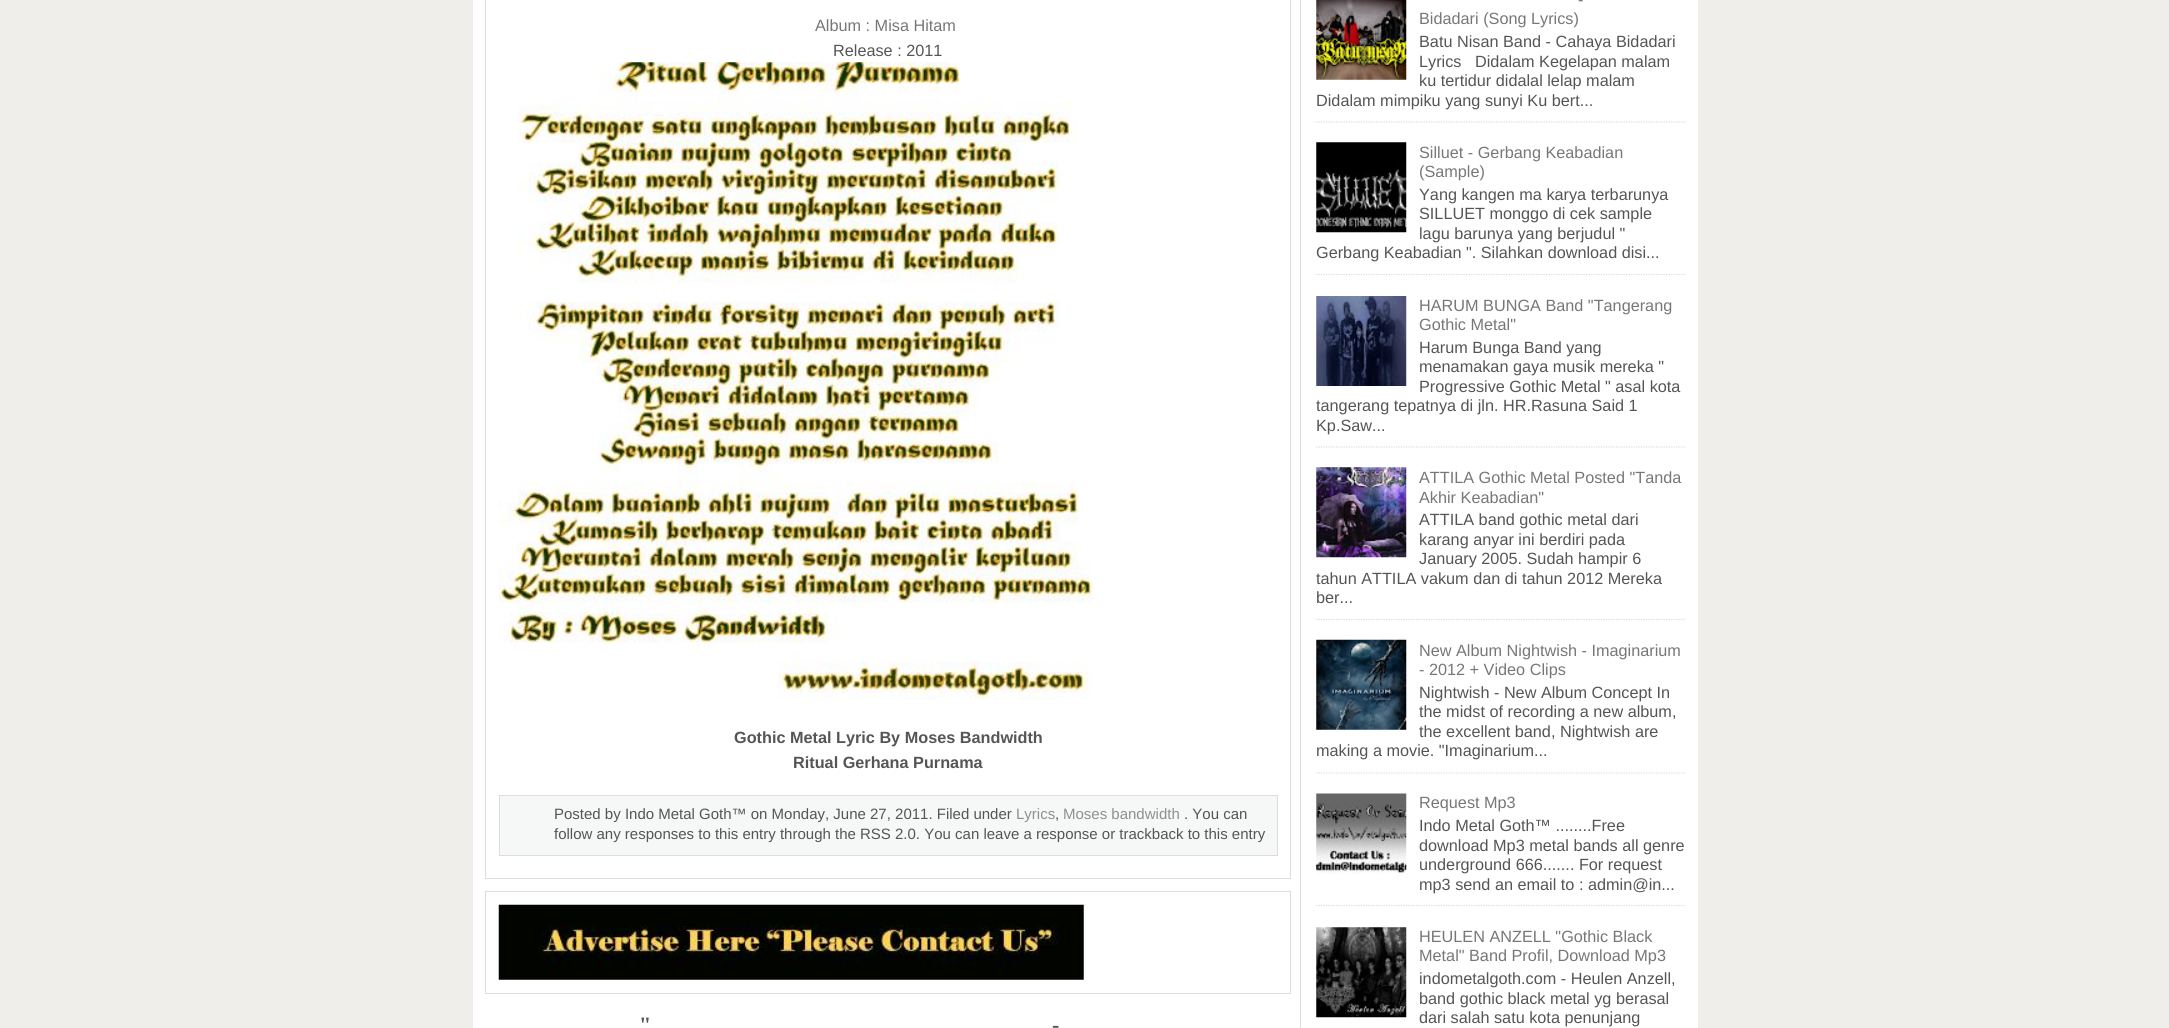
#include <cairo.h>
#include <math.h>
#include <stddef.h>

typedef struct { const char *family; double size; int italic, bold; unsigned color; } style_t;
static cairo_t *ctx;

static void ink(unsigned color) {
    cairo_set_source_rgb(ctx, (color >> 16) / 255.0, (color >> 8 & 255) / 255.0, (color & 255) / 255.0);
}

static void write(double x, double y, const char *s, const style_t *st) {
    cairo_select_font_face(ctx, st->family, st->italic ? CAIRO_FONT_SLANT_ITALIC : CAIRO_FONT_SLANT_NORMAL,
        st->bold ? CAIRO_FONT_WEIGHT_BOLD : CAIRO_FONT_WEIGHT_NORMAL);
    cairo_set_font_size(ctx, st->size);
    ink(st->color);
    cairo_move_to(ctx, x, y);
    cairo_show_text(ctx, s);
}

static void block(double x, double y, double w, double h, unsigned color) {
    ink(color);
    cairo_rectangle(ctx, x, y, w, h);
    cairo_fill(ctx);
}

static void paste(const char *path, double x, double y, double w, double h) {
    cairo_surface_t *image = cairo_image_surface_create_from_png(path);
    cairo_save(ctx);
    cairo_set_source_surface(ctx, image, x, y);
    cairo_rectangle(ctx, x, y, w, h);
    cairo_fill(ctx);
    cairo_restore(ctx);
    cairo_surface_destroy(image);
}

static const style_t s1 = {"Liberation Sans", 16.25, 0, 0, 0x777777};
static const style_t s2 = {"Liberation Sans", 16.25, 0, 0, 0x555555};
static const style_t s3 = {"Liberation Sans", 16.25, 0, 1, 0x555555};
static const style_t s4 = {"Liberation Sans", 15, 0, 0, 0x555555};
static const style_t s5 = {"Liberation Sans", 15, 0, 0, 0x8f8f8f};
static const style_t s6 = {"Liberation Serif", 22, 0, 1, 0x555555};

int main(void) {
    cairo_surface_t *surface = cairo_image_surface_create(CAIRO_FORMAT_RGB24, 2169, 1028);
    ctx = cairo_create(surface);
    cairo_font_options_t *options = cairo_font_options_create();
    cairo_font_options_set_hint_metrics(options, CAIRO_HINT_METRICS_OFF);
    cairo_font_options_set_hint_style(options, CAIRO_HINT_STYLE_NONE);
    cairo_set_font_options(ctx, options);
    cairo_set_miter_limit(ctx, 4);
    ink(0xf0eeea);
    cairo_paint(ctx);
    block(473, 0, 1225, 1028, 0xffffff);
    block(1300, 0, 1, 1028, 0xdddddd);
    cairo_rectangle(ctx, 485.5, -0.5, 805, 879);
    cairo_set_line_width(ctx, 1);
    cairo_stroke(ctx);
    write(815, 31, "Album : Misa Hitam", &s1);
    write(833, 56, "Release : 2011", &s2);
    paste("pic1.png", 498, 62, 595, 638);
    write(734, 743, "Gothic Metal Lyric By Moses Bandwidth", &s3);
    write(793, 768, "Ritual Gerhana Purnama", &s3);
    ink(0xf6f7f7);
    cairo_rectangle(ctx, 499.5, 795.5, 778, 60);
    cairo_fill_preserve(ctx);
    ink(0xdddddd);
    cairo_stroke(ctx);
    write(554, 819, "Posted by Indo Metal Goth™ on Monday, June 27, 2011. Filed under", &s4);
    write(1016, 819, "Lyrics", &s5);
    write(1055, 819, ",", &s4);
    write(1063, 819, "Moses bandwidth", &s5);
    write(1184, 819, ". You can", &s4);
    write(554, 839, "follow any responses to this entry through the RSS 2.0. You can leave a response or trackback to this entry", &s4);
    cairo_rectangle(ctx, 485.5, 891.5, 805, 102);
    ink(0xdddddd);
    cairo_stroke(ctx);
    paste("pic2.png", 498, 904, 586, 76);
    write(639, 1032, "\"", &s6);
    write(1052, 1032, "-", &s6);
    cairo_new_path(ctx);
    cairo_move_to(ctx, 1316, 122);
    cairo_line_to(ctx, 1685, 122);
    ink(0xdddddd);
    cairo_set_line_width(ctx, 1.2);
    cairo_set_dash(ctx, (double[]){1.25, 1.25}, 2, 0);
    cairo_stroke(ctx);
    paste("pic3.png", 1316, 0, 91, 80);
    write(1578, 5, "-", &s1);
    write(1419, 24, "Bidadari (Song Lyrics)", &s1);
    write(1419, 47, "Batu Nisan Band - Cahaya Bidadari", &s2);
    write(1419, 67, "Lyrics   Didalam Kegelapan malam", &s2);
    write(1419, 86, "ku tertidur didalal lelap malam", &s2);
    write(1316, 106, "Didalam mimpiku yang sunyi Ku bert...", &s2);
    cairo_new_path(ctx);
    cairo_move_to(ctx, 1316, 274.5);
    cairo_line_to(ctx, 1685, 274.5);
    ink(0xdddddd);
    cairo_stroke(ctx);
    paste("pic4.png", 1316, 142, 91, 91);
    write(1419, 158, "Silluet - Gerbang Keabadian", &s1);
    write(1419, 177, "(Sample)", &s1);
    write(1419, 200, "Yang kangen ma karya terbarunya", &s2);
    write(1419, 219, "SILLUET monggo di cek sample", &s2);
    write(1419, 239, "lagu barunya yang berjudul \"", &s2);
    write(1316, 258, "Gerbang Keabadian \". Silahkan download disi...", &s2);
    cairo_new_path(ctx);
    cairo_move_to(ctx, 1316, 447);
    cairo_line_to(ctx, 1685, 447);
    ink(0xdddddd);
    cairo_stroke(ctx);
    paste("pic5.png", 1316, 296, 91, 90);
    write(1419, 311, "HARUM BUNGA Band \"Tangerang", &s1);
    write(1419, 330, "Gothic Metal\"", &s1);
    write(1419, 353, "Harum Bunga Band yang", &s2);
    write(1419, 372, "menamakan gaya musik mereka \"", &s2);
    write(1419, 392, "Progressive Gothic Metal \" asal kota", &s2);
    write(1316, 411, "tangerang tepatnya di jln. HR.Rasuna Said 1", &s2);
    write(1316, 431, "Kp.Saw...", &s2);
    cairo_new_path(ctx);
    cairo_move_to(ctx, 1316, 619.5);
    cairo_line_to(ctx, 1685, 619.5);
    ink(0xdddddd);
    cairo_stroke(ctx);
    paste("pic6.png", 1316, 467, 91, 91);
    write(1419, 483, "ATTILA Gothic Metal Posted \"Tanda", &s1);
    write(1419, 503, "Akhir Keabadian\"", &s1);
    write(1419, 525, "ATTILA band gothic metal dari", &s2);
    write(1419, 545, "karang anyar ini berdiri pada", &s2);
    write(1419, 564, "January 2005. Sudah hampir 6", &s2);
    write(1316, 584, "tahun ATTILA vakum dan di tahun 2012 Mereka", &s2);
    write(1316, 603, "ber...", &s2);
    cairo_new_path(ctx);
    cairo_move_to(ctx, 1316, 773);
    cairo_line_to(ctx, 1685, 773);
    ink(0xdddddd);
    cairo_stroke(ctx);
    paste("pic7.png", 1316, 639, 91, 91);
    write(1419, 656, "New Album Nightwish - Imaginarium", &s1);
    write(1419, 675, "- 2012 + Video Clips", &s1);
    write(1419, 698, "Nightwish - New Album Concept In", &s2);
    write(1419, 717, "the midst of recording a new album,", &s2);
    write(1419, 737, "the excellent band, Nightwish are", &s2);
    write(1316, 756, "making a movie. \"Imaginarium...", &s2);
    cairo_new_path(ctx);
    cairo_move_to(ctx, 1316, 905.5);
    cairo_line_to(ctx, 1685, 905.5);
    ink(0xdddddd);
    cairo_stroke(ctx);
    paste("pic8.png", 1316, 793, 91, 81);
    write(1419, 808, "Request Mp3", &s1);
    write(1419, 831, "Indo Metal Goth™ ........Free", &s2);
    write(1419, 851, "download Mp3 metal bands all genre", &s2);
    write(1419, 870, "underground 666....... For request", &s2);
    write(1419, 890, "mp3 send an email to : admin@in...", &s2);
    paste("pic9.png", 1316, 927, 91, 91);
    write(1419, 942, "HEULEN ANZELL \"Gothic Black", &s1);
    write(1419, 961, "Metal\" Band Profil, Download Mp3", &s1);
    write(1419, 984, "indometalgoth.com - Heulen Anzell,", &s2);
    write(1419, 1004, "band gothic black metal yg berasal", &s2);
    write(1419, 1023, "dari salah satu kota penunjang", &s2);
    cairo_surface_write_to_png(surface, "screenshot.png");
    cairo_font_options_destroy(options);
    cairo_destroy(ctx);
    cairo_surface_destroy(surface);
    return 0;
}
